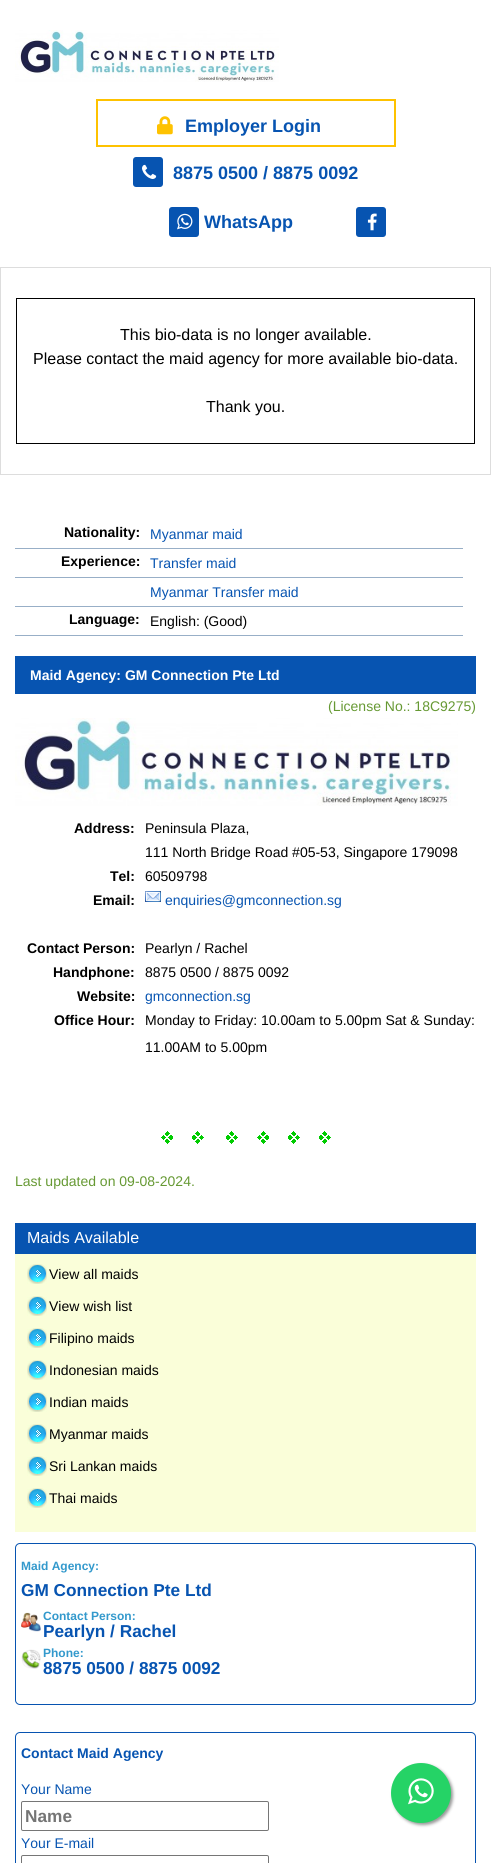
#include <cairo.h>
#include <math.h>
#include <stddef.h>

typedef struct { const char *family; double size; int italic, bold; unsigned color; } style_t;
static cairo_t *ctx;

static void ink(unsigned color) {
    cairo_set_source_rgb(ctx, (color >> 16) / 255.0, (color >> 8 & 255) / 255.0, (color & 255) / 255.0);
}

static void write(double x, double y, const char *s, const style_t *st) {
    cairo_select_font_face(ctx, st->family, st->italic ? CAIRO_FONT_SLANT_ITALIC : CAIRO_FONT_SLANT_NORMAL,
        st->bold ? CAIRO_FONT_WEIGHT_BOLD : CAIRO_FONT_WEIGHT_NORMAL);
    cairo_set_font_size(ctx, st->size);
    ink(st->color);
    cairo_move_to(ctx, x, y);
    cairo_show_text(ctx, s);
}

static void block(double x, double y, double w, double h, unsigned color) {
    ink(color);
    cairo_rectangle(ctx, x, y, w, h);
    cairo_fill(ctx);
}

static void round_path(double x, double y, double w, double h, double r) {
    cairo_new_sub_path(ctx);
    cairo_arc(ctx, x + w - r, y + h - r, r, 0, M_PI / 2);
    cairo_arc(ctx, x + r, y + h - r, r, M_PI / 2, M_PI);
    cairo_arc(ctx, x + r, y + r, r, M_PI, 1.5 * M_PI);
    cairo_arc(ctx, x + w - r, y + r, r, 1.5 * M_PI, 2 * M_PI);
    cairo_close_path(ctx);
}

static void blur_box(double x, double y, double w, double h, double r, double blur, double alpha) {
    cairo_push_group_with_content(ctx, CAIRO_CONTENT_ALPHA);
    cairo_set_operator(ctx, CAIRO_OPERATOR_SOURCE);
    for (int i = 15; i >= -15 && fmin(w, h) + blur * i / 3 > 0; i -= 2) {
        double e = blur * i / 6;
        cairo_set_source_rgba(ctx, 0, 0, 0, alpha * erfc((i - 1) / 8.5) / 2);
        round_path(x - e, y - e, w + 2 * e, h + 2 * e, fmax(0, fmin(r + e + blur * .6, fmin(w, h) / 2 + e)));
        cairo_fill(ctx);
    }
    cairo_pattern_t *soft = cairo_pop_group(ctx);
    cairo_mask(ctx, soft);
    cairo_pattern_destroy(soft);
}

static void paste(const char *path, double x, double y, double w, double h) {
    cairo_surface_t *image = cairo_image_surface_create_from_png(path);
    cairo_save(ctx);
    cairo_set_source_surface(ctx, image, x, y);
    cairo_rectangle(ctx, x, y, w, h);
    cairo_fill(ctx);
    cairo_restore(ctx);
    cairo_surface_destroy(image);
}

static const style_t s1 = {"Liberation Sans", 18, 0, 1, 0x0754b1};
static const style_t s2 = {"Liberation Sans", 16, 0, 0, 0x000000};
static const style_t s3 = {"Liberation Sans", 14, 0, 1, 0x000000};
static const style_t s4 = {"Liberation Sans", 14, 0, 0, 0x0754b1};
static const style_t s5 = {"Liberation Sans", 14, 0, 0, 0x000000};
static const style_t s6 = {"Liberation Sans", 14, 0, 1, 0xffffff};
static const style_t s7 = {"Liberation Sans", 14, 0, 0, 0x669933};
static const style_t s8 = {"Liberation Sans", 16, 0, 0, 0xffffff};
static const style_t s9 = {"Liberation Sans", 12, 0, 1, 0x3399cc};
static const style_t s10 = {"Liberation Sans", 17.25, 0, 1, 0x0754b1};
static const style_t s11 = {"Liberation Sans", 14, 0, 1, 0x0754b1};
static const style_t s12 = {"Liberation Sans", 17.25, 0, 1, 0x757575};

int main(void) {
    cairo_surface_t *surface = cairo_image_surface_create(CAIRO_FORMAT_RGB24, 491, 1863);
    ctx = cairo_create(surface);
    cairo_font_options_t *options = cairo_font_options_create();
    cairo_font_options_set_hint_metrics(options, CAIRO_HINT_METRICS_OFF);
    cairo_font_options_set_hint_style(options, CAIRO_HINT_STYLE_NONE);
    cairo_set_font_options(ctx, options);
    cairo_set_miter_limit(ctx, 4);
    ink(0xffffff);
    cairo_paint(ctx);
    paste("pic1.png", 15, 30, 264, 52);
    cairo_rectangle(ctx, 97, 100, 298, 46);
    ink(0xfec200);
    cairo_stroke(ctx);
    paste("pic2.png", 157, 116, 16, 19);
    write(185, 132, "Employer Login", &s1);
    round_path(133, 157, 30, 30, 3);
    cairo_fill(ctx);
    paste("pic3.png", 142, 164, 15, 15);
    write(173, 179, "8875 0500 / 8875 0092", &s1);
    round_path(169, 207, 30, 30, 3);
    cairo_fill(ctx);
    paste("pic4.png", 177, 213, 16, 17);
    write(204, 228, "WhatsApp", &s1);
    round_path(356, 207, 30, 30, 3);
    cairo_fill(ctx);
    paste("pic5.png", 367, 213, 10, 18);
    cairo_rectangle(ctx, 0.5, 267.5, 490, 207);
    ink(0xdddddd);
    cairo_set_line_width(ctx, 1);
    cairo_stroke(ctx);
    cairo_rectangle(ctx, 16.5, 298.5, 458, 145);
    ink(0x000000);
    cairo_stroke(ctx);
    write(120, 340, "This bio-data is no longer available.", &s2);
    write(33, 364, "Please contact the maid agency for more available bio-data.", &s2);
    write(206, 412, "Thank you.", &s2);
    write(64, 537, "Nationality:", &s3);
    block(15, 548, 448, 1, 0x98afc7);
    write(150, 539, "Myanmar maid", &s4);
    write(61, 566, "Experience:", &s3);
    block(15, 577, 448, 1, 0x98afc7);
    write(150, 568, "Transfer maid", &s4);
    block(15, 606, 448, 1, 0x98afc7);
    write(150, 597, "Myanmar Transfer maid", &s4);
    write(69, 624, "Language:", &s3);
    block(15, 635, 448, 1, 0x98afc7);
    write(150, 626, "English: (Good)", &s5);
    block(15, 656, 461, 38, 0x0754b1);
    write(30, 680, "Maid Agency: GM Connection Pte Ltd", &s6);
    write(328, 711, "(License No.: 18C9275)", &s7);
    paste("pic6.png", 15, 718, 443, 88);
    write(74, 833, "Address:", &s3);
    write(145, 833, "Peninsula Plaza,", &s5);
    write(145, 857, "111 North Bridge Road #05-53, Singapore 179098", &s5);
    write(110, 881, "Tel:", &s3);
    write(145, 881, "60509798", &s5);
    write(93, 905, "Email:", &s3);
    paste("pic7.png", 145, 891, 16, 11);
    write(165, 905, "enquiries@gmconnection.sg", &s4);
    write(27, 953, "Contact Person:", &s3);
    write(145, 953, "Pearlyn / Rachel", &s5);
    write(53, 977, "Handphone:", &s3);
    write(145, 977, "8875 0500 / 8875 0092", &s5);
    write(77, 1001, "Website:", &s3);
    write(145, 1001, "gmconnection.sg", &s4);
    write(54, 1025, "Office Hour:", &s3);
    write(145, 1025, "Monday to Friday: 10.00am to 5.00pm Sat & Sunday:", &s5);
    write(145, 1052, "11.00AM to 5.00pm", &s5);
    paste("pic8.png", 161, 1131, 170, 13);
    write(15, 1186, "Last updated on 09-08-2024.", &s7);
    block(15, 1254, 461, 278, 0xfafed9);
    block(15, 1223, 461, 31, 0x0754b1);
    write(27, 1243, "Maids Available", &s8);
    paste("pic9.png", 27, 1264, 20, 20);
    write(49, 1279, "View all maids", &s5);
    paste("pic9.png", 27, 1296, 20, 20);
    write(49, 1311, "View wish list", &s5);
    paste("pic9.png", 27, 1328, 20, 20);
    write(49, 1343, "Filipino maids", &s5);
    paste("pic9.png", 27, 1360, 20, 20);
    write(49, 1375, "Indonesian maids", &s5);
    paste("pic9.png", 27, 1392, 20, 20);
    write(49, 1407, "Indian maids", &s5);
    paste("pic9.png", 27, 1424, 20, 20);
    write(49, 1439, "Myanmar maids", &s5);
    paste("pic9.png", 27, 1456, 20, 20);
    write(49, 1471, "Sri Lankan maids", &s5);
    paste("pic9.png", 27, 1488, 20, 20);
    write(49, 1503, "Thai maids", &s5);
    round_path(15.5, 1543.5, 460, 161, 4.5);
    ink(0x0754b1);
    cairo_stroke(ctx);
    write(21, 1570, "Maid Agency:", &s9);
    write(21, 1596, "GM Connection Pte Ltd", &s10);
    paste("pic10.png", 21, 1612, 20, 20);
    write(43, 1620, "Contact Person:", &s9);
    write(43, 1637, "Pearlyn / Rachel", &s10);
    paste("pic11.png", 21, 1649, 20, 20);
    write(43, 1657, "Phone:", &s9);
    write(43, 1674, "8875 0500 / 8875 0092", &s10);
    round_path(15.5, 1732.5, 460, 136, 4.5);
    cairo_stroke(ctx);
    write(21, 1758, "Contact Maid Agency", &s11);
    write(21, 1794, "Your Name", &s4);
    round_path(21.5, 1801.5, 247, 29, 1.5);
    ink(0x767676);
    cairo_stroke(ctx);
    write(25, 1822, "Name", &s12);
    write(21, 1848, "Your E-mail", &s4);
    round_path(21.5, 1855.5, 247, 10, 1.5);
    ink(0x767676);
    cairo_stroke(ctx);
    ink(0x999999);
    blur_box(393, 1765, 60, 60, 30, 1.5, 1);
    ink(0x25d366);
    cairo_arc(ctx, 421, 1793, 30, 0, 2 * M_PI);
    cairo_fill(ctx);
    paste("pic12.png", 408, 1778, 26, 27);
    cairo_surface_write_to_png(surface, "screenshot.png");
    cairo_font_options_destroy(options);
    cairo_destroy(ctx);
    cairo_surface_destroy(surface);
    return 0;
}
